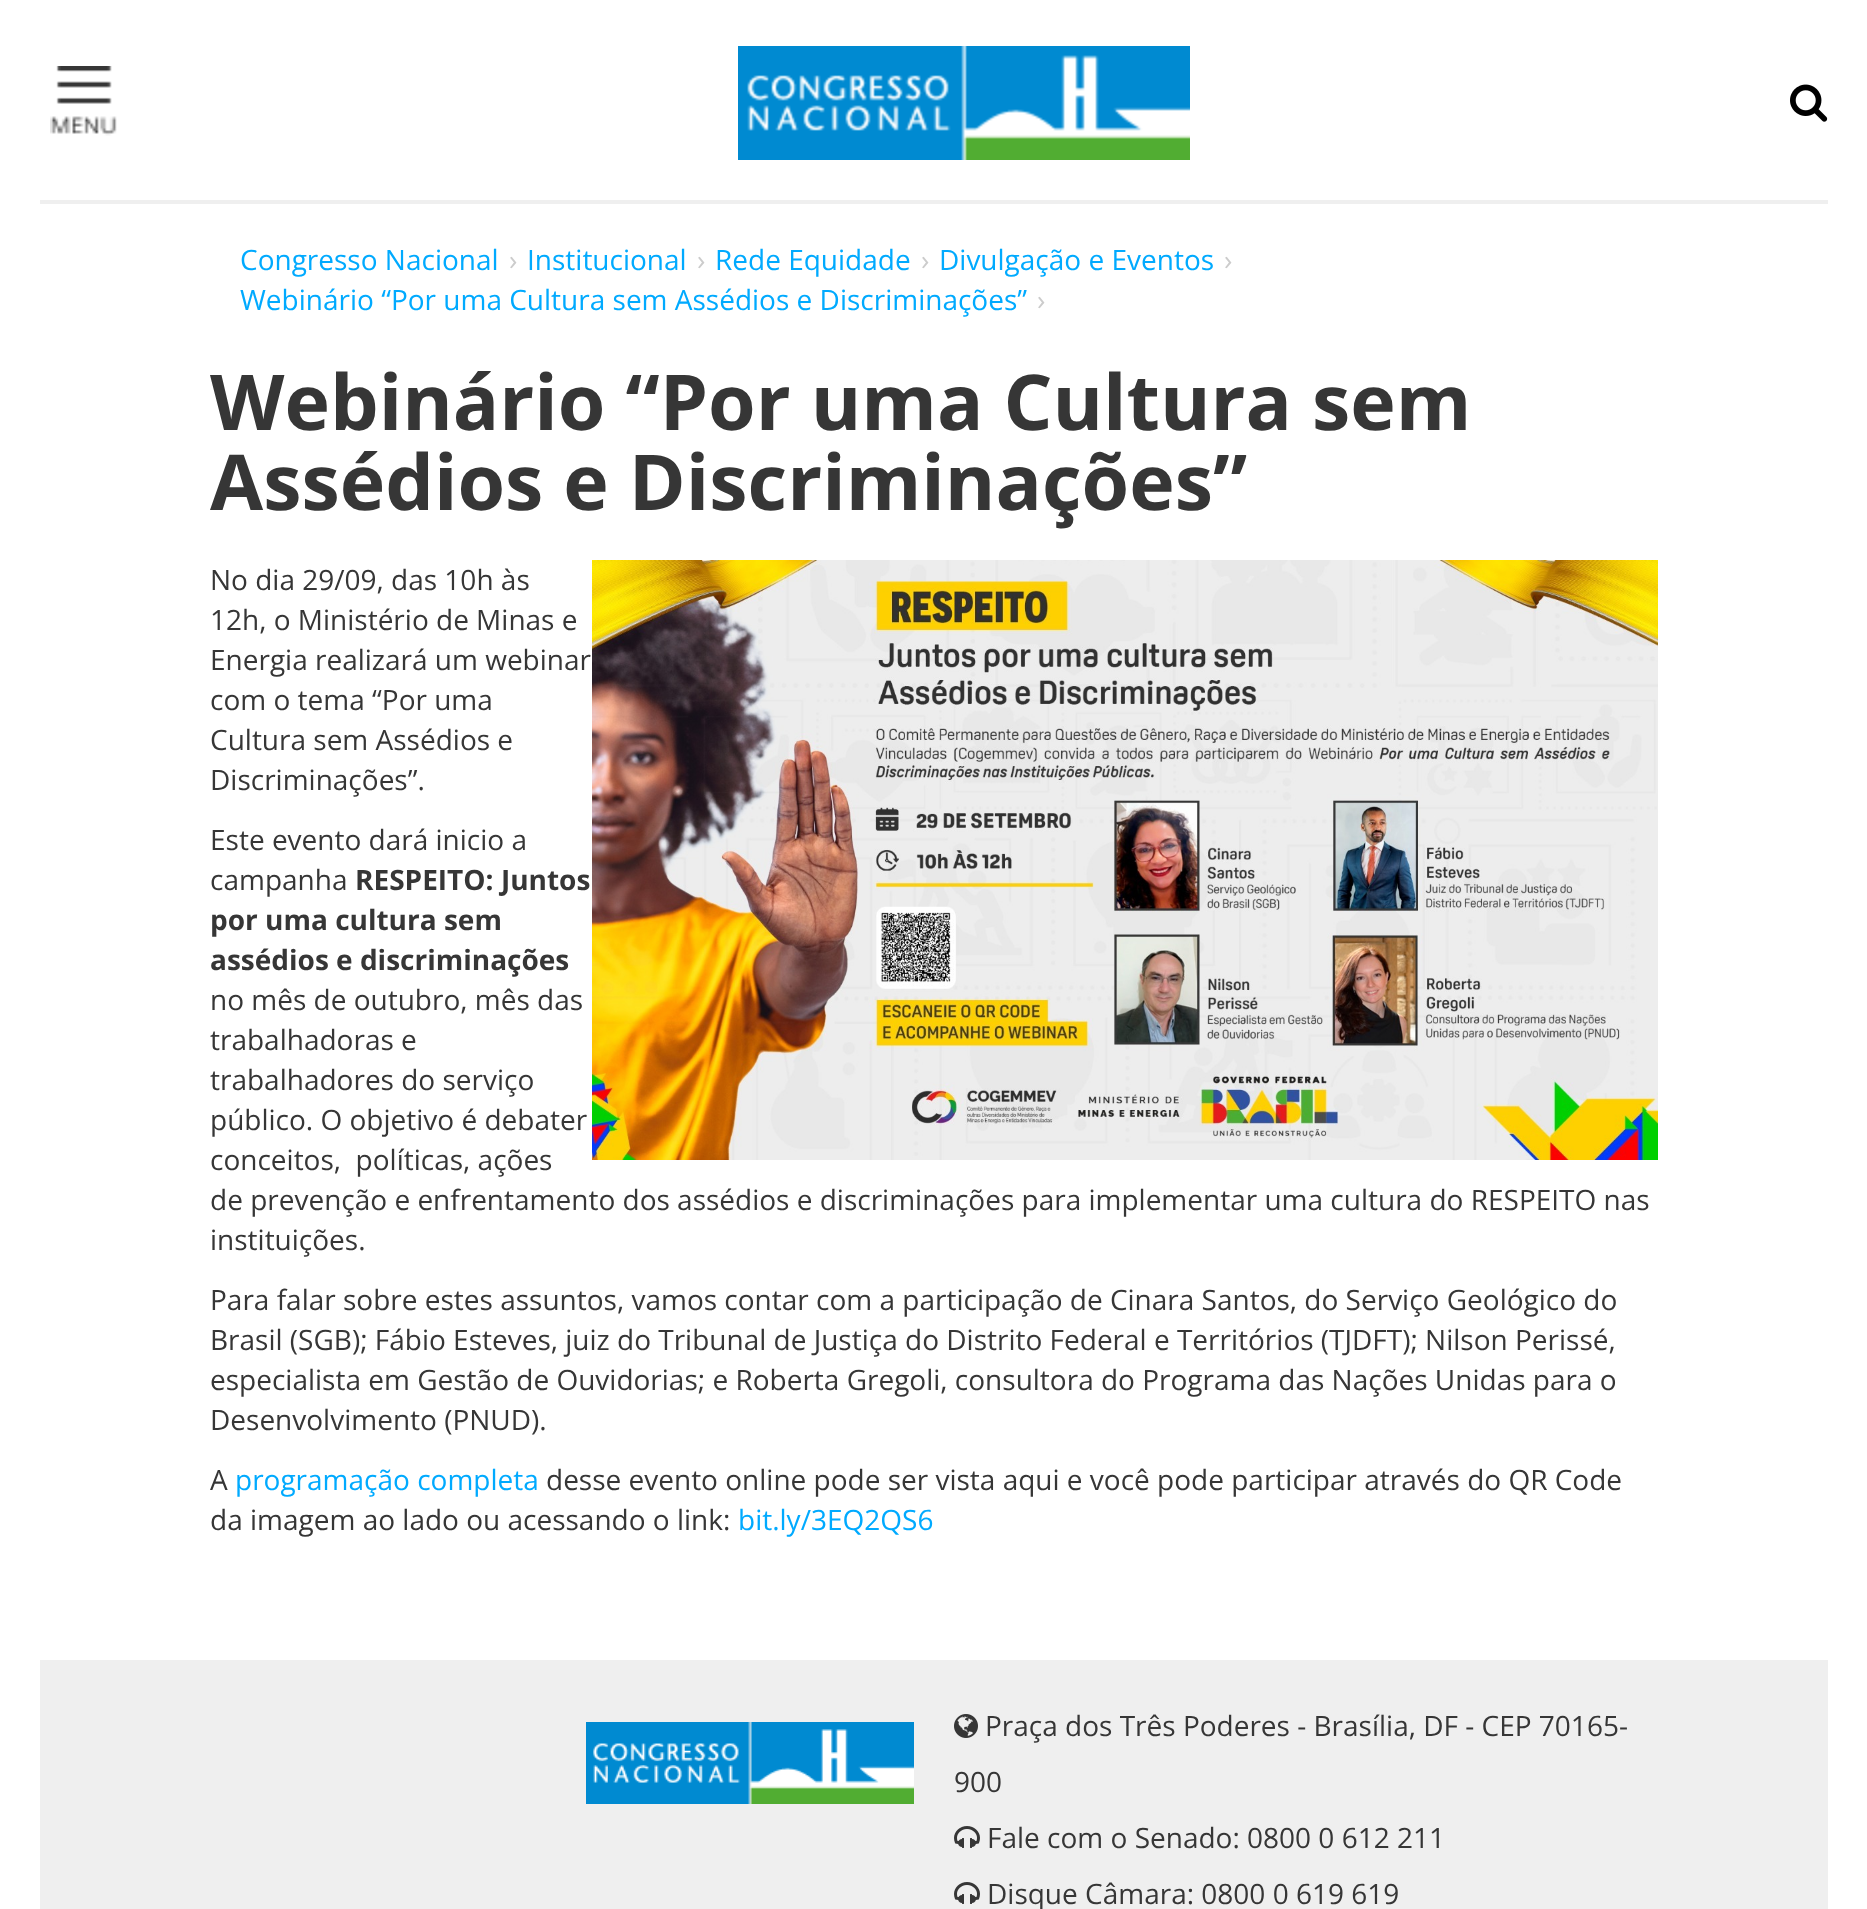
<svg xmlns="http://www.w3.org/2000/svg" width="1867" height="1909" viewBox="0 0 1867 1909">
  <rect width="100%" height="100%" fill="#ffffff"/>
  <rect x="40" y="200" width="1788" height="4" fill="#efefef"/>
  <image x="50" y="66" width="67" height="70" href="img1.png"/>
  <image x="738" y="46" width="452" height="114" href="img2.png"/>
  <image x="1790" y="84" width="38" height="38" href="img3.png"/>
  <text x="240" y="270" font-family="Open Sans" font-size="28" fill="#00aaff">Congresso Nacional</text>
  <text x="509" y="270" font-family="Open Sans" font-size="28" fill="#cccccc">›</text>
  <text x="527" y="270" font-family="Open Sans" font-size="28" fill="#00aaff">Institucional</text>
  <text x="697" y="270" font-family="Open Sans" font-size="28" fill="#cccccc">›</text>
  <text x="715" y="270" font-family="Open Sans" font-size="28" fill="#00aaff">Rede Equidade</text>
  <text x="921" y="270" font-family="Open Sans" font-size="28" fill="#cccccc">›</text>
  <text x="939" y="270" font-family="Open Sans" font-size="28" fill="#00aaff">Divulgação e Eventos</text>
  <text x="1224" y="270" font-family="Open Sans" font-size="28" fill="#cccccc">›</text>
  <text x="240" y="310" font-family="Open Sans" font-size="28" fill="#00aaff">Webinário “Por uma Cultura sem Assédios e Discriminações”</text>
  <text x="1037" y="310" font-family="Open Sans" font-size="28" fill="#cccccc">›</text>
  <text x="210" y="430" font-family="Open Sans" font-size="77" font-weight="bold" fill="#363636">Webinário “Por uma Cultura sem</text>
  <text x="210" y="510" font-family="Open Sans" font-size="77" font-weight="bold" fill="#363636">Assédios e Discriminações”</text>
  <text x="210" y="590" font-family="Open Sans" font-size="28" fill="#363636">No dia 29/09, das 10h às</text>
  <image x="592" y="560" width="1066" height="600" href="img4.png"/>
  <text x="210" y="630" font-family="Open Sans" font-size="28" fill="#363636">12h, o Ministério de Minas e</text>
  <text x="210" y="670" font-family="Open Sans" font-size="28" fill="#363636">Energia realizará um webinar</text>
  <text x="210" y="710" font-family="Open Sans" font-size="28" fill="#363636">com o tema “Por uma</text>
  <text x="210" y="750" font-family="Open Sans" font-size="28" fill="#363636">Cultura sem Assédios e</text>
  <text x="210" y="790" font-family="Open Sans" font-size="28" fill="#363636">Discriminações”.</text>
  <text x="210" y="850" font-family="Open Sans" font-size="28" fill="#363636">Este evento dará inicio a</text>
  <text x="210" y="890" font-family="Open Sans" font-size="28" fill="#363636">campanha</text>
  <text x="355" y="890" font-family="Open Sans" font-size="28" font-weight="bold" fill="#363636">RESPEITO: Juntos</text>
  <text x="210" y="930" font-family="Open Sans" font-size="28" font-weight="bold" fill="#363636">por uma cultura sem</text>
  <text x="210" y="970" font-family="Open Sans" font-size="28" font-weight="bold" fill="#363636">assédios e discriminações</text>
  <text x="210" y="1010" font-family="Open Sans" font-size="28" fill="#363636">no mês de outubro, mês das</text>
  <text x="210" y="1050" font-family="Open Sans" font-size="28" fill="#363636">trabalhadoras e</text>
  <text x="210" y="1090" font-family="Open Sans" font-size="28" fill="#363636">trabalhadores do serviço</text>
  <text x="210" y="1130" font-family="Open Sans" font-size="28" fill="#363636">público. O objetivo é debater</text>
  <text x="210" y="1170" font-family="Open Sans" font-size="28" fill="#363636" xml:space="preserve">conceitos,  políticas, ações</text>
  <text x="210" y="1210" font-family="Open Sans" font-size="28" fill="#363636">de prevenção e enfrentamento dos assédios e discriminações para implementar uma cultura do RESPEITO nas</text>
  <text x="210" y="1250" font-family="Open Sans" font-size="28" fill="#363636">instituições.</text>
  <text x="210" y="1310" font-family="Open Sans" font-size="28" fill="#363636">Para falar sobre estes assuntos, vamos contar com a participação de Cinara Santos, do Serviço Geológico do</text>
  <text x="210" y="1350" font-family="Open Sans" font-size="28" fill="#363636">Brasil (SGB); Fábio Esteves, juiz do Tribunal de Justiça do Distrito Federal e Territórios (TJDFT); Nilson Perissé,</text>
  <text x="210" y="1390" font-family="Open Sans" font-size="28" fill="#363636">especialista em Gestão de Ouvidorias; e Roberta Gregoli, consultora do Programa das Nações Unidas para o</text>
  <text x="210" y="1430" font-family="Open Sans" font-size="28" fill="#363636">Desenvolvimento (PNUD).</text>
  <text x="210" y="1490" font-family="Open Sans" font-size="28" fill="#363636">A</text>
  <text x="235" y="1490" font-family="Open Sans" font-size="28" fill="#00aaff">programação completa</text>
  <text x="546" y="1490" font-family="Open Sans" font-size="28" fill="#363636">desse evento online pode ser vista aqui e você pode participar através do QR Code</text>
  <text x="210" y="1530" font-family="Open Sans" font-size="28" fill="#363636">da imagem ao lado ou acessando o link:</text>
  <text x="738" y="1530" font-family="Open Sans" font-size="28" fill="#00aaff">bit.ly/3EQ2QS6</text>
  <rect x="40" y="1660" width="1788" height="249" fill="#efefef"/>
  <image x="586" y="1722" width="328" height="82" href="img5.png"/>
  <image x="954" y="1714" width="24" height="24" href="img6.png"/>
  <text x="985" y="1736" font-family="Open Sans" font-size="28" fill="#363636">Praça dos Três Poderes - Brasília, DF - CEP 70165-</text>
  <text x="954" y="1792" font-family="Open Sans" font-size="28" fill="#363636">900</text>
  <image x="954" y="1826" width="26" height="22" href="img7.png"/>
  <text x="987" y="1848" font-family="Open Sans" font-size="28" fill="#363636">Fale com o Senado: 0800 0 612 211</text>
  <image x="954" y="1882" width="26" height="22" href="img7.png"/>
  <text x="987" y="1904" font-family="Open Sans" font-size="28" fill="#363636">Disque Câmara: 0800 0 619 619</text>
</svg>
